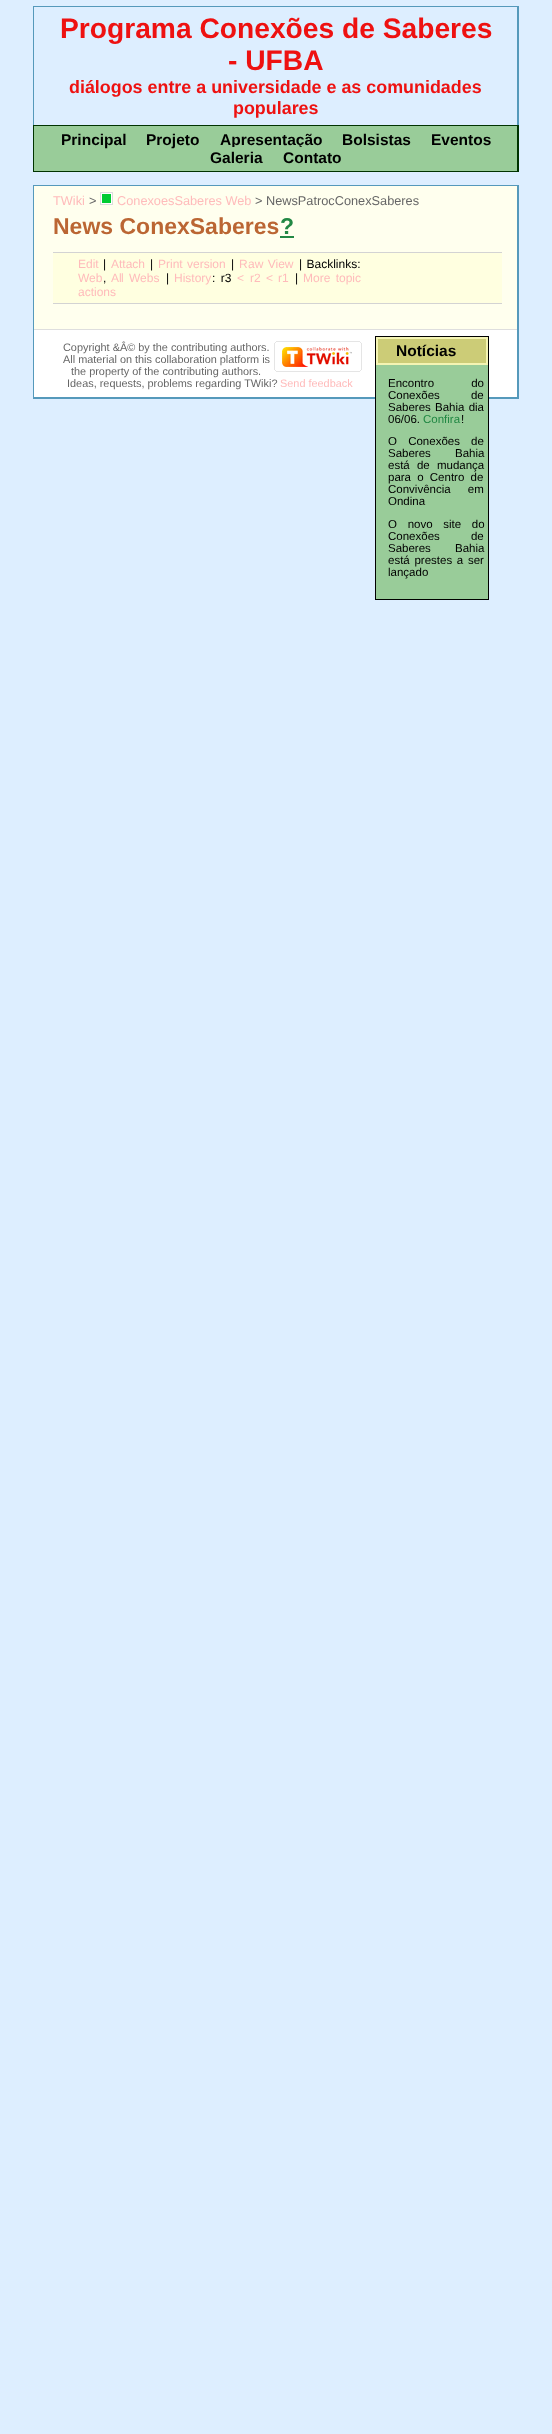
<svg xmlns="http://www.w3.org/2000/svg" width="552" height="2434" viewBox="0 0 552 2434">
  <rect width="100%" height="100%" fill="#ddeeff"/>
  <rect x="33" y="6" width="486" height="1" fill="#5599bb"/>
  <rect x="517" y="6" width="2" height="119" fill="#5599bb"/>
  <rect x="33" y="6" width="1" height="119" fill="#5599bb"/>
  <text x="60" y="38" font-family="Liberation Sans" font-size="28.2" font-weight="bold" fill="#ee1111">Programa Conexões de Saberes</text>
  <text x="228" y="70" font-family="Liberation Sans" font-size="28.2" font-weight="bold" fill="#ee1111">- UFBA</text>
  <text x="69" y="93" font-family="Liberation Sans" font-size="17.9" font-weight="bold" fill="#ee1111">diálogos entre a universidade e as comunidades</text>
  <text x="233" y="114" font-family="Liberation Sans" font-size="17.9" font-weight="bold" fill="#ee1111">populares</text>
  <rect x="34" y="126" width="483" height="45" fill="#99cc99"/>
  <rect x="33" y="125" width="486" height="1" fill="#003300"/>
  <rect x="517" y="125" width="2" height="47" fill="#003300"/>
  <rect x="33" y="171" width="486" height="1" fill="#003300"/>
  <rect x="33" y="125" width="1" height="47" fill="#003300"/>
  <text x="61" y="145" font-family="Liberation Sans" font-size="15.5" font-weight="bold" fill="#000000">Principal</text>
  <text x="146" y="145" font-family="Liberation Sans" font-size="15.5" font-weight="bold" fill="#000000">Projeto</text>
  <text x="220" y="145" font-family="Liberation Sans" font-size="15.5" font-weight="bold" fill="#000000">Apresentação</text>
  <text x="342" y="145" font-family="Liberation Sans" font-size="15.5" font-weight="bold" fill="#000000">Bolsistas</text>
  <text x="431" y="145" font-family="Liberation Sans" font-size="15.5" font-weight="bold" fill="#000000">Eventos</text>
  <rect x="203" y="148" width="66" height="19" fill="none" stroke="#99cc99" stroke-width="2"/>
  <text x="210" y="163" font-family="Liberation Sans" font-size="15.5" font-weight="bold" fill="#000000">Galeria</text>
  <rect x="276" y="148" width="72" height="19" fill="none" stroke="#99cc99" stroke-width="2"/>
  <text x="283" y="163" font-family="Liberation Sans" font-size="15.5" font-weight="bold" fill="#000000">Contato</text>
  <rect x="34" y="186" width="483" height="143" fill="#ffffee"/>
  <rect x="33" y="185" width="486" height="1" fill="#5599bb"/>
  <rect x="517" y="185" width="2" height="214" fill="#5599bb"/>
  <rect x="33" y="397" width="486" height="2" fill="#5599bb"/>
  <rect x="33" y="185" width="1" height="214" fill="#5599bb"/>
  <rect x="34" y="329" width="483" height="1" fill="#dedede"/>
  <text x="53" y="205" font-family="Liberation Sans" font-size="12.75" fill="#ffbbbb">TWiki</text>
  <text x="89" y="205" font-family="Liberation Sans" font-size="12.75" fill="#666666">&gt;</text>
  <rect x="102" y="194" width="9" height="9" fill="#00cc33"/>
  <image x="100" y="192" width="13" height="13" href="img1.png"/>
  <text x="117" y="205" font-family="Liberation Sans" font-size="12.75" fill="#ffbbbb">ConexoesSaberes Web</text>
  <text x="255" y="205" font-family="Liberation Sans" font-size="12.75" fill="#666666">&gt; NewsPatrocConexSaberes</text>
  <text x="53" y="234" font-family="Liberation Sans" font-size="23" font-weight="bold" fill="#bb6633">News ConexSaberes</text>
  <text x="280" y="234" font-family="Liberation Sans" font-size="23" font-weight="bold" fill="#228844">?</text>
  <rect x="280" y="236" width="14" height="2" fill="#228844"/>
  <rect x="53" y="253" width="449" height="50" fill="#ffffe0"/>
  <rect x="53" y="252" width="449" height="1" fill="#d3d3d3"/>
  <rect x="53" y="303" width="449" height="1" fill="#d3d3d3"/>
  <text x="78" y="268" font-family="Liberation Sans" font-size="12" fill="#ffbbbb">Edit</text>
  <text x="103" y="268" font-family="Liberation Sans" font-size="12" fill="#000000">|</text>
  <text x="111" y="268" font-family="Liberation Sans" font-size="12" fill="#ffbbbb">Attach</text>
  <text x="150" y="268" font-family="Liberation Sans" font-size="12" fill="#000000">|</text>
  <text x="158" y="268" font-family="Liberation Sans" font-size="12" fill="#ffbbbb">P</text>
  <text x="166" y="268" word-spacing="1" font-family="Liberation Sans" font-size="12" fill="#ffbbbb">rint version</text>
  <text x="231" y="268" font-family="Liberation Sans" font-size="12" fill="#000000">|</text>
  <text x="239" y="268" font-family="Liberation Sans" font-size="12" fill="#ffbbbb">R</text>
  <text x="248" y="268" word-spacing="1" font-family="Liberation Sans" font-size="12" fill="#ffbbbb">aw View</text>
  <text x="299" y="268" word-spacing="1" font-family="Liberation Sans" font-size="12" fill="#000000">| Backlinks:</text>
  <text x="78" y="282" font-family="Liberation Sans" font-size="12" fill="#ffbbbb">Web</text>
  <text x="103" y="282" font-family="Liberation Sans" font-size="12" fill="#000000">,</text>
  <text x="111" y="282" font-family="Liberation Sans" font-size="12" fill="#ffbbbb">Al</text>
  <text x="121" y="282" word-spacing="2" font-family="Liberation Sans" font-size="12" fill="#ffbbbb">l Webs</text>
  <text x="166" y="282" font-family="Liberation Sans" font-size="12" fill="#000000">|</text>
  <text x="174" y="282" font-family="Liberation Sans" font-size="12" fill="#ffbbbb">History</text>
  <text x="212" y="282" word-spacing="2" font-family="Liberation Sans" font-size="12" fill="#000000">: r3</text>
  <text x="237" y="282" font-family="Liberation Sans" font-size="12" fill="#ffbbbb">&lt;</text>
  <text x="250" y="282" font-family="Liberation Sans" font-size="12" fill="#ffbbbb">r2</text>
  <text x="266" y="282" font-family="Liberation Sans" font-size="12" fill="#ffbbbb">&lt;</text>
  <text x="278" y="282" font-family="Liberation Sans" font-size="12" fill="#ffbbbb">r1</text>
  <text x="295" y="282" font-family="Liberation Sans" font-size="12" fill="#000000">|</text>
  <text x="303" y="282" font-family="Liberation Sans" font-size="12" fill="#ffbbbb">M</text>
  <text x="313" y="282" word-spacing="2" font-family="Liberation Sans" font-size="12" fill="#ffbbbb">ore topic</text>
  <text x="78" y="296" font-family="Liberation Sans" font-size="12" fill="#ffbbbb">actions</text>
  <rect x="34" y="330" width="483" height="67" fill="#ffffff"/>
  <rect x="376" y="365" width="112" height="234" fill="#99cc99"/>
  <rect x="375.5" y="336.5" width="113" height="263" fill="none" stroke="#000000"/>
  <rect x="377" y="338" width="110" height="26" fill="#cccc77" stroke="#f4f4b3" stroke-width="2"/>
  <text x="396" y="356" font-family="Liberation Sans" font-size="15.5" font-weight="bold" fill="#000000">Notícias</text>
  <text x="388" y="387" word-spacing="34" font-family="Liberation Sans" font-size="11.5" fill="#000000">Encontro do</text>
  <text x="388" y="399" word-spacing="28" font-family="Liberation Sans" font-size="11.5" fill="#000000">Conexões de</text>
  <text x="388" y="411" word-spacing="1" font-family="Liberation Sans" font-size="11.5" fill="#000000">Saberes Bahia dia</text>
  <text x="388" y="423" font-family="Liberation Sans" font-size="11.5" fill="#000000">06/06.</text>
  <text x="423" y="423" font-family="Liberation Sans" font-size="11.5" fill="#228844">Confira</text>
  <text x="461" y="423" font-family="Liberation Sans" font-size="11.5" fill="#000000">!</text>
  <text x="388" y="445" word-spacing="8" font-family="Liberation Sans" font-size="11.5" fill="#000000">O Conexões de</text>
  <text x="388" y="457" word-spacing="21" font-family="Liberation Sans" font-size="11.5" fill="#000000">Saberes Bahia</text>
  <text x="388" y="469" word-spacing="4" font-family="Liberation Sans" font-size="11.5" fill="#000000">está de mudança</text>
  <text x="388" y="481" word-spacing="3" font-family="Liberation Sans" font-size="11.5" fill="#000000">para o Centro de</text>
  <text x="388" y="493" word-spacing="14" font-family="Liberation Sans" font-size="11.5" fill="#000000">Convivência em</text>
  <text x="388" y="505" font-family="Liberation Sans" font-size="11.5" fill="#000000">Ondina</text>
  <text x="388" y="528" word-spacing="7.5" font-family="Liberation Sans" font-size="11.5" fill="#000000">O novo site do</text>
  <text x="388" y="540" word-spacing="28" font-family="Liberation Sans" font-size="11.5" fill="#000000">Conexões de</text>
  <text x="388" y="552" word-spacing="21" font-family="Liberation Sans" font-size="11.5" fill="#000000">Saberes Bahia</text>
  <text x="388" y="564" word-spacing="1.5" font-family="Liberation Sans" font-size="11.5" fill="#000000">está prestes a ser</text>
  <text x="388" y="576" font-family="Liberation Sans" font-size="11.5" fill="#000000">lançado</text>
  <text x="63" y="351" font-family="Liberation Sans" font-size="10.9" fill="#666666">Copyright &amp;Â© by the contributing authors.</text>
  <image x="274" y="341" width="88" height="31" href="img2.png"/>
  <text x="63" y="363" font-family="Liberation Sans" font-size="10.9" fill="#666666">All material on this collaboration platform is</text>
  <text x="71" y="375" font-family="Liberation Sans" font-size="10.9" fill="#666666">the property of the contributing authors.</text>
  <text x="67" y="387" font-family="Liberation Sans" font-size="10.9" fill="#666666">Ideas, requests, problems regarding TWiki?</text>
  <text x="280" y="387" font-family="Liberation Sans" font-size="10.9" fill="#ffbbbb">Send feedback</text>
</svg>
